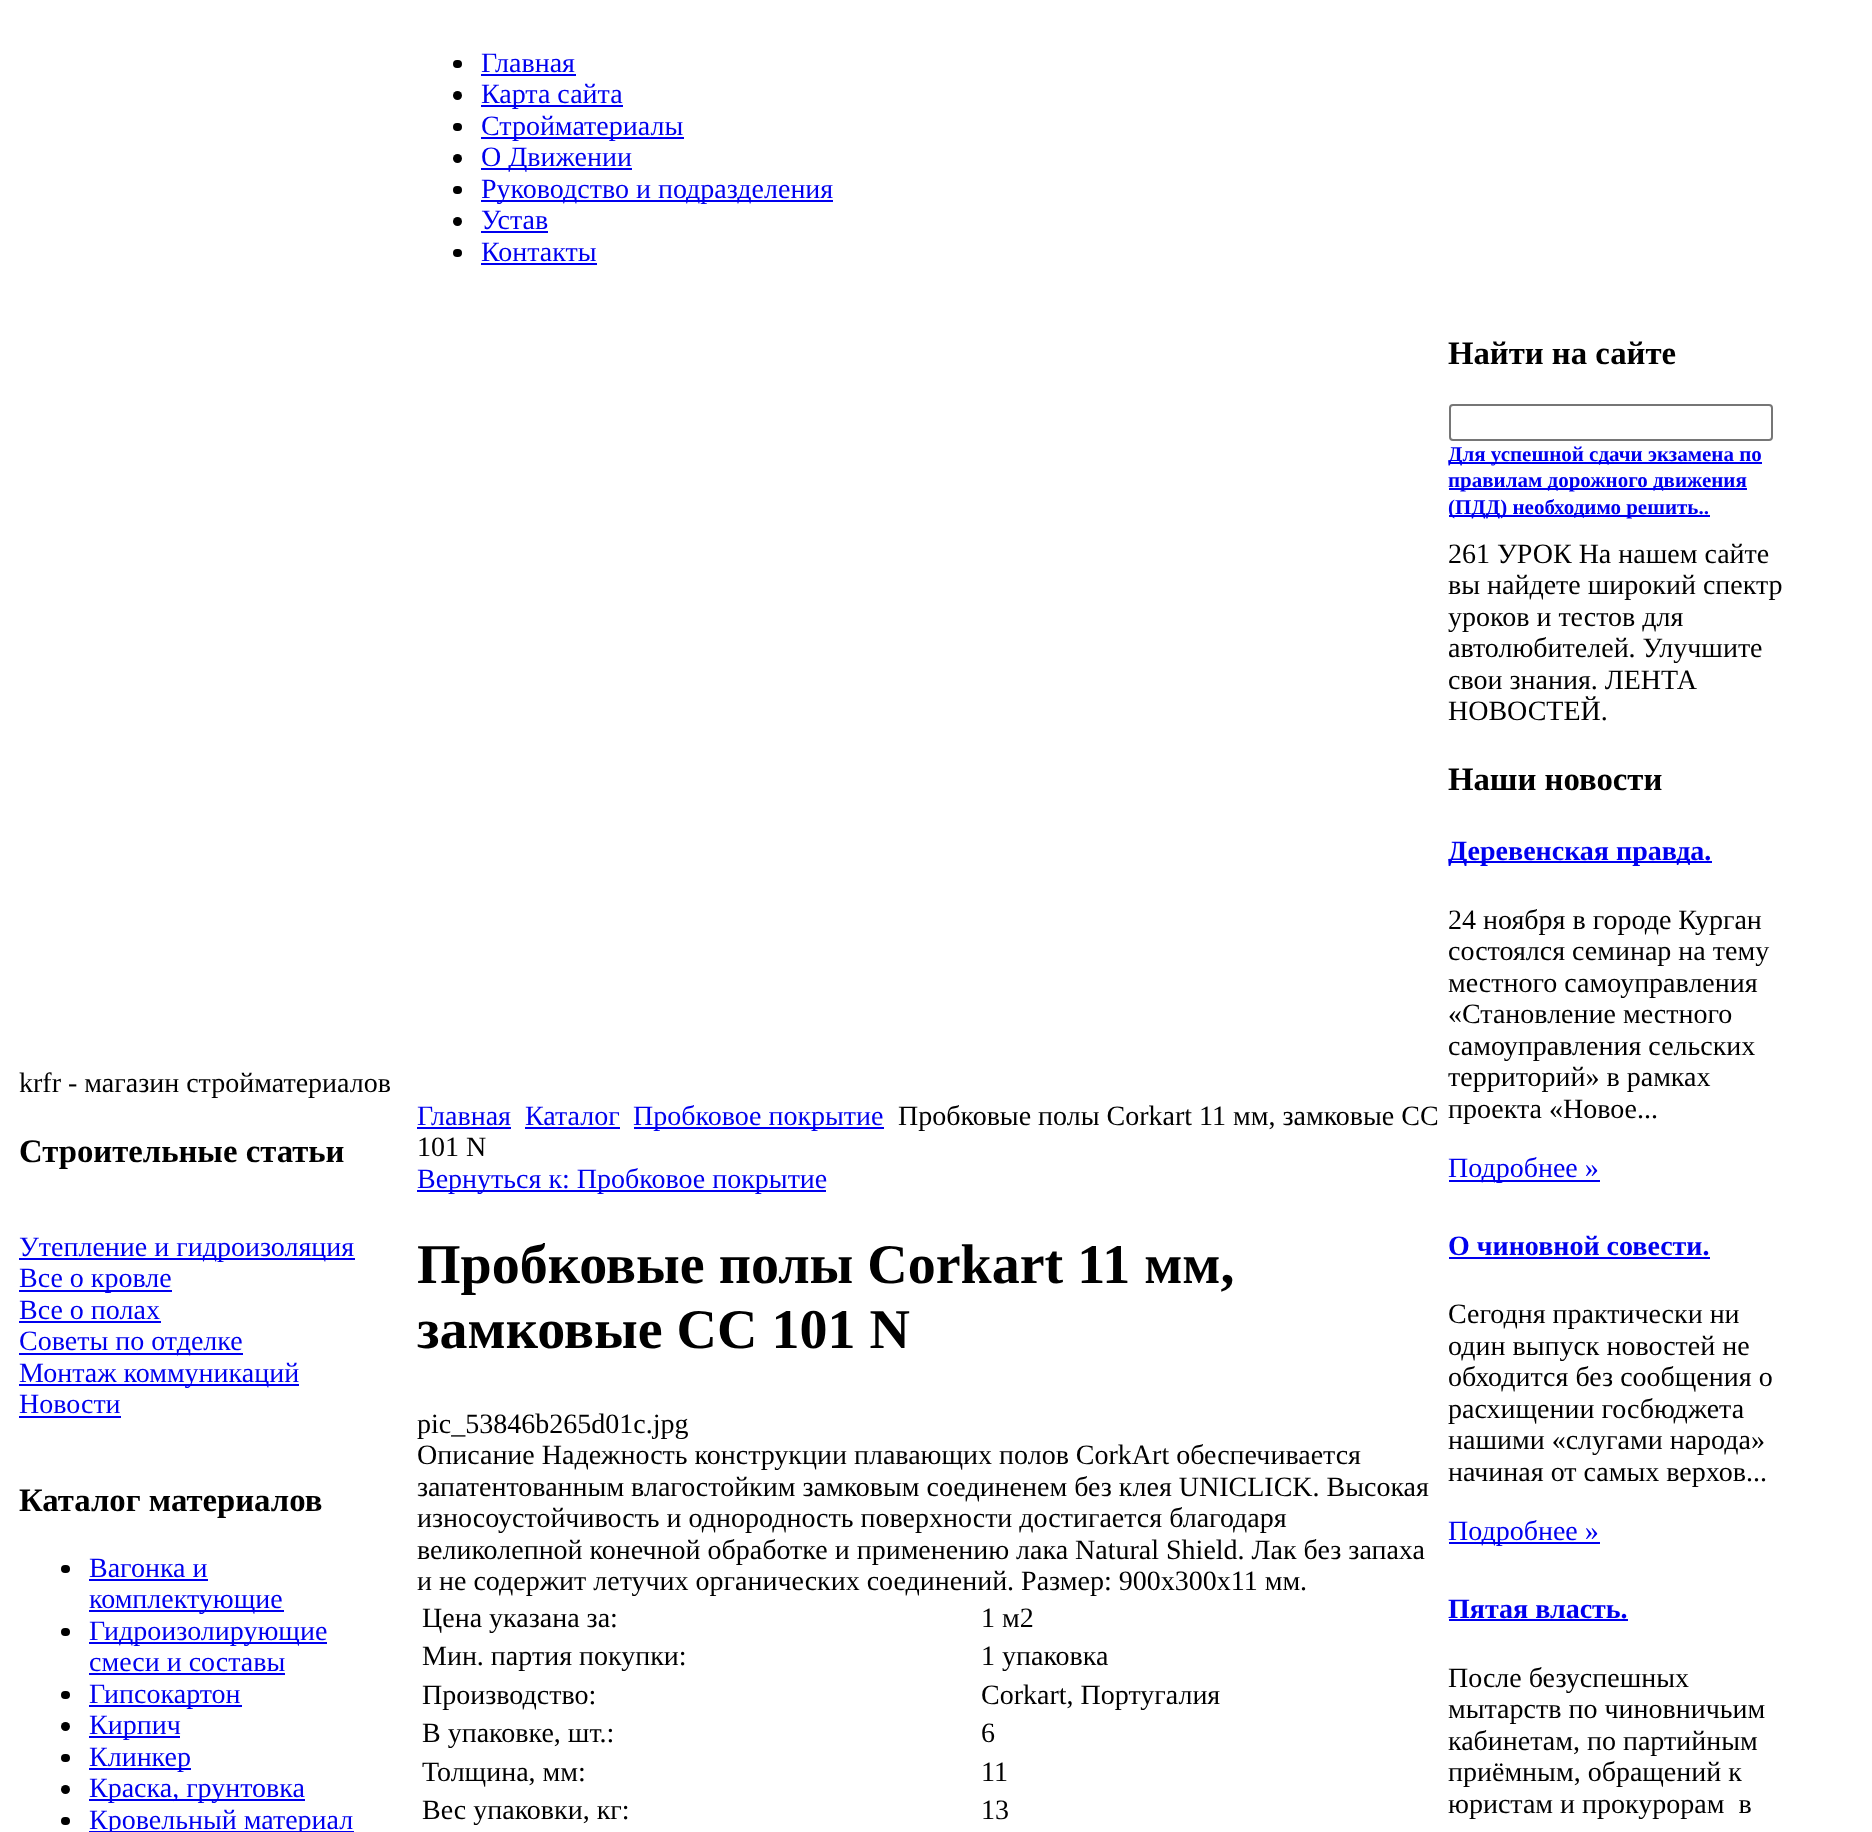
<svg xmlns="http://www.w3.org/2000/svg" width="1872" height="1832" viewBox="0 0 1872 1832">
  <rect width="100%" height="100%" fill="#ffffff"/>
  <text x="19" y="1092" font-family="Liberation Serif" font-size="28" fill="#000000">krfr - магазин стройматериалов</text>
  <text x="19" y="1162" font-family="Liberation Serif" font-size="32.75" font-weight="bold" fill="#000000">Строительные статьи</text>
  <rect x="19" y="1258" width="336" height="2" fill="#0000ee"/>
  <text x="19" y="1256" font-family="Liberation Serif" font-size="28" fill="#0000ee">Утепление и гидроизоляция</text>
  <rect x="19" y="1290" width="153" height="2" fill="#0000ee"/>
  <text x="19" y="1287" font-family="Liberation Serif" font-size="28" fill="#0000ee">Все о кровле</text>
  <text x="19" y="1319" font-family="Liberation Serif" font-size="28" fill="#0000ee">Все о полах</text>
  <rect x="19" y="1321" width="142" height="2" fill="#0000ee"/>
  <rect x="19" y="1353" width="224" height="2" fill="#0000ee"/>
  <text x="19" y="1350" font-family="Liberation Serif" font-size="28" fill="#0000ee">Советы по отделке</text>
  <rect x="19" y="1384" width="280" height="2" fill="#0000ee"/>
  <text x="19" y="1382" font-family="Liberation Serif" font-size="28" fill="#0000ee">Монтаж коммуникаций</text>
  <text x="19" y="1413" font-family="Liberation Serif" font-size="28" fill="#0000ee">Новости</text>
  <rect x="19" y="1416" width="102" height="2" fill="#0000ee"/>
  <text x="19" y="1511" font-family="Liberation Serif" font-size="32.75" font-weight="bold" fill="#000000">Каталог материалов</text>
  <rect x="61" y="1565" width="9" height="8" rx="4" fill="#000000"/>
  <text x="89" y="1577" font-family="Liberation Serif" font-size="28" fill="#0000ee">Вагонка и</text>
  <rect x="89" y="1579" width="119" height="2" fill="#0000ee"/>
  <rect x="89" y="1610" width="195" height="2" fill="#0000ee"/>
  <text x="89" y="1608" font-family="Liberation Serif" font-size="28" fill="#0000ee">комплектующие</text>
  <rect x="61" y="1628" width="9" height="8" rx="4" fill="#000000"/>
  <rect x="89" y="1642" width="238" height="2" fill="#0000ee"/>
  <text x="89" y="1640" font-family="Liberation Serif" font-size="28" fill="#0000ee">Гидроизолирующие</text>
  <text x="89" y="1671" font-family="Liberation Serif" font-size="28" fill="#0000ee">смеси и составы</text>
  <rect x="89" y="1673" width="196" height="2" fill="#0000ee"/>
  <rect x="61" y="1691" width="9" height="8" rx="4" fill="#000000"/>
  <rect x="89" y="1705" width="153" height="2" fill="#0000ee"/>
  <text x="89" y="1703" font-family="Liberation Serif" font-size="28" fill="#0000ee">Гипсокартон</text>
  <circle cx="65.5" cy="1726.5" r="4.5" fill="#000000"/>
  <rect x="89" y="1736" width="91" height="2" fill="#0000ee"/>
  <text x="89" y="1734" font-family="Liberation Serif" font-size="28" fill="#0000ee">Кирпич</text>
  <rect x="61" y="1754" width="9" height="8" rx="4" fill="#000000"/>
  <rect x="89" y="1768" width="102" height="2" fill="#0000ee"/>
  <text x="89" y="1766" font-family="Liberation Serif" font-size="28" fill="#0000ee">Клинкер</text>
  <circle cx="65.5" cy="1789.5" r="4.5" fill="#000000"/>
  <rect x="89" y="1799" width="216" height="2" fill="#0000ee"/>
  <text x="89" y="1797" font-family="Liberation Serif" font-size="28" fill="#0000ee">Краска, грунтовка</text>
  <rect x="61" y="1817" width="9" height="8" rx="4" fill="#000000"/>
  <rect x="89" y="1831" width="265" height="1" fill="#0000ee"/>
  <text x="89" y="1829" font-family="Liberation Serif" font-size="28" fill="#0000ee">Кровельный материал</text>
  <rect x="453" y="60" width="9" height="8" rx="4" fill="#000000"/>
  <text x="481" y="72" font-family="Liberation Serif" font-size="28" fill="#0000ee">Главная</text>
  <rect x="481" y="74" width="95" height="2" fill="#0000ee"/>
  <circle cx="457.5" cy="95.5" r="4.5" fill="#000000"/>
  <rect x="481" y="105" width="142" height="2" fill="#0000ee"/>
  <text x="481" y="103" font-family="Liberation Serif" font-size="28" fill="#0000ee">Карта сайта</text>
  <rect x="453" y="123" width="9" height="8" rx="4" fill="#000000"/>
  <rect x="481" y="137" width="203" height="2" fill="#0000ee"/>
  <text x="481" y="135" font-family="Liberation Serif" font-size="28" fill="#0000ee">Стройматериалы</text>
  <circle cx="457.5" cy="158.5" r="4.5" fill="#000000"/>
  <rect x="481" y="168" width="151" height="2" fill="#0000ee"/>
  <text x="481" y="166" font-family="Liberation Serif" font-size="28" fill="#0000ee">О Движении</text>
  <rect x="453" y="186" width="9" height="8" rx="4" fill="#000000"/>
  <rect x="481" y="200" width="352" height="2" fill="#0000ee"/>
  <text x="481" y="198" font-family="Liberation Serif" font-size="28" fill="#0000ee">Руководство и подразделения</text>
  <circle cx="457.5" cy="221.5" r="4.5" fill="#000000"/>
  <text x="481" y="229" font-family="Liberation Serif" font-size="28" fill="#0000ee">Устав</text>
  <rect x="481" y="231" width="67" height="2" fill="#0000ee"/>
  <rect x="453" y="249" width="9" height="8" rx="4" fill="#000000"/>
  <text x="481" y="261" font-family="Liberation Serif" font-size="28" fill="#0000ee">Контакты</text>
  <rect x="481" y="263" width="116" height="2" fill="#0000ee"/>
  <text x="417" y="1125" font-family="Liberation Serif" font-size="28" fill="#0000ee">Главная</text>
  <rect x="417" y="1127" width="94" height="2" fill="#0000ee"/>
  <text x="525" y="1125" font-family="Liberation Serif" font-size="28" fill="#0000ee">Каталог</text>
  <rect x="525" y="1127" width="95" height="2" fill="#0000ee"/>
  <rect x="634" y="1127" width="250" height="2" fill="#0000ee"/>
  <text x="633" y="1125" font-family="Liberation Serif" font-size="28" fill="#0000ee">Пробковое покрытие</text>
  <text x="898" y="1125" font-family="Liberation Serif" font-size="28" fill="#000000">Пробковые полы Corkart 11 мм, замковые CC</text>
  <text x="417" y="1156" font-family="Liberation Serif" font-size="28" fill="#000000">101 N</text>
  <rect x="417" y="1190" width="409" height="2" fill="#0000ee"/>
  <text x="417" y="1188" font-family="Liberation Serif" font-size="28" fill="#0000ee">Вернуться к: Пробковое покрытие</text>
  <text x="417" y="1283" font-family="Liberation Serif" font-size="56" font-weight="bold" fill="#000000">Пробковые полы Corkart 11 мм,</text>
  <text x="417" y="1348" font-family="Liberation Serif" font-size="56" font-weight="bold" fill="#000000">замковые CC 101 N</text>
  <text x="417" y="1433" font-family="Liberation Serif" font-size="28" fill="#000000">pic_53846b265d01c.jpg</text>
  <text x="417" y="1464" font-family="Liberation Serif" font-size="28" fill="#000000">Описание Надежность конструкции плавающих полов CorkArt обеспечивается</text>
  <text x="417" y="1496" font-family="Liberation Serif" font-size="28" fill="#000000">запатентованным влагостойким замковым соединенем без клея UNICLICK. Высокая</text>
  <text x="417" y="1527" font-family="Liberation Serif" font-size="28" fill="#000000">износоустойчивость и однородность поверхности достигается благодаря</text>
  <text x="417" y="1559" font-family="Liberation Serif" font-size="28" fill="#000000">великолепной конечной обработке и применению лака Natural Shield. Лак без запаха</text>
  <text x="417" y="1590" font-family="Liberation Serif" font-size="28" fill="#000000">и не содержит летучих органических соединений. Размер: 900х300х11 мм.</text>
  <text x="422" y="1627" font-family="Liberation Serif" font-size="28" fill="#000000">Цена указана за:</text>
  <text x="981" y="1627" font-family="Liberation Serif" font-size="28" fill="#000000">1 м2</text>
  <text x="422" y="1665" font-family="Liberation Serif" font-size="28" fill="#000000">Мин. партия покупки:</text>
  <text x="981" y="1665" font-family="Liberation Serif" font-size="28" fill="#000000">1 упаковка</text>
  <text x="422" y="1704" font-family="Liberation Serif" font-size="28" fill="#000000">Производство:</text>
  <text x="981" y="1704" font-family="Liberation Serif" font-size="28" fill="#000000">Corkart, Португалия</text>
  <text x="422" y="1742" font-family="Liberation Serif" font-size="28" fill="#000000">В упаковке, шт.:</text>
  <text x="981" y="1742" font-family="Liberation Serif" font-size="28" fill="#000000">6</text>
  <text x="422" y="1781" font-family="Liberation Serif" font-size="28" fill="#000000">Толщина, мм:</text>
  <text x="981" y="1781" font-family="Liberation Serif" font-size="28" fill="#000000">11</text>
  <text x="422" y="1819" font-family="Liberation Serif" font-size="28" fill="#000000">Вес упаковки, кг:</text>
  <text x="981" y="1819" font-family="Liberation Serif" font-size="28" fill="#000000">13</text>
  <text x="1448" y="364" font-family="Liberation Serif" font-size="32.75" font-weight="bold" fill="#000000">Найти на сайте</text>
  <rect x="1450" y="405" width="322" height="35" rx="3" fill="none" stroke="#767676" stroke-width="2"/>
  <rect x="1449" y="462" width="313" height="2" fill="#0000ee"/>
  <text x="1448" y="461" font-family="Liberation Serif" font-size="21" font-weight="bold" fill="#0000ee">Для успешной сдачи экзамена по</text>
  <rect x="1449" y="488" width="298" height="2" fill="#0000ee"/>
  <text x="1448" y="487" font-family="Liberation Serif" font-size="21" font-weight="bold" fill="#0000ee">правилам дорожного движения</text>
  <rect x="1449" y="515" width="261" height="2" fill="#0000ee"/>
  <text x="1448" y="514" font-family="Liberation Serif" font-size="21" font-weight="bold" fill="#0000ee">(ПДД) необходимо решить..</text>
  <text x="1448" y="563" font-family="Liberation Serif" font-size="28" fill="#000000">261 УРОК На нашем сайте</text>
  <text x="1448" y="594" font-family="Liberation Serif" font-size="28" fill="#000000">вы найдете широкий спектр</text>
  <text x="1448" y="626" font-family="Liberation Serif" font-size="28" fill="#000000">уроков и тестов для</text>
  <text x="1448" y="657" font-family="Liberation Serif" font-size="28" fill="#000000">автолюбителей. Улучшите</text>
  <text x="1448" y="689" font-family="Liberation Serif" font-size="28" fill="#000000">свои знания. ЛЕНТА</text>
  <text x="1448" y="720" font-family="Liberation Serif" font-size="28" fill="#000000">НОВОСТЕЙ.</text>
  <text x="1448" y="790" font-family="Liberation Serif" font-size="32.75" font-weight="bold" fill="#000000">Наши новости</text>
  <rect x="1449" y="861" width="263" height="2" fill="#0000ee"/>
  <text x="1448" y="860" font-family="Liberation Serif" font-size="28" font-weight="bold" fill="#0000ee">Деревенская правда.</text>
  <text x="1448" y="929" font-family="Liberation Serif" font-size="28" fill="#000000">24 ноября в городе Курган</text>
  <text x="1448" y="960" font-family="Liberation Serif" font-size="28" fill="#000000">состоялся семинар на тему</text>
  <text x="1448" y="992" font-family="Liberation Serif" font-size="28" fill="#000000">местного самоуправления</text>
  <text x="1448" y="1023" font-family="Liberation Serif" font-size="28" fill="#000000">«Становление местного</text>
  <text x="1448" y="1055" font-family="Liberation Serif" font-size="28" fill="#000000">самоуправления сельских</text>
  <text x="1448" y="1086" font-family="Liberation Serif" font-size="28" fill="#000000">территорий» в рамках</text>
  <text x="1448" y="1118" font-family="Liberation Serif" font-size="28" fill="#000000">проекта «Новое...</text>
  <rect x="1449" y="1180" width="151" height="2" fill="#0000ee"/>
  <text x="1448" y="1177" font-family="Liberation Serif" font-size="28" fill="#0000ee">Подробнее »</text>
  <text x="1448" y="1255" font-family="Liberation Serif" font-size="28" font-weight="bold" fill="#0000ee">О чиновной совести.</text>
  <rect x="1449" y="1257" width="261" height="2" fill="#0000ee"/>
  <text x="1448" y="1323" font-family="Liberation Serif" font-size="28" fill="#000000">Сегодня практически ни</text>
  <text x="1448" y="1355" font-family="Liberation Serif" font-size="28" fill="#000000">один выпуск новостей не</text>
  <text x="1448" y="1386" font-family="Liberation Serif" font-size="28" fill="#000000">обходится без сообщения о</text>
  <text x="1448" y="1418" font-family="Liberation Serif" font-size="28" fill="#000000">расхищении госбюджета</text>
  <text x="1448" y="1449" font-family="Liberation Serif" font-size="28" fill="#000000">нашими «слугами народа»</text>
  <text x="1448" y="1481" font-family="Liberation Serif" font-size="28" fill="#000000">начиная от самых верхов...</text>
  <rect x="1449" y="1542" width="151" height="2" fill="#0000ee"/>
  <text x="1448" y="1540" font-family="Liberation Serif" font-size="28" fill="#0000ee">Подробнее »</text>
  <text x="1448" y="1618" font-family="Liberation Serif" font-size="28" font-weight="bold" fill="#0000ee">Пятая власть.</text>
  <rect x="1449" y="1619" width="179" height="2" fill="#0000ee"/>
  <text x="1448" y="1687" font-family="Liberation Serif" font-size="28" fill="#000000">После безуспешных</text>
  <text x="1448" y="1718" font-family="Liberation Serif" font-size="28" fill="#000000">мытарств по чиновничьим</text>
  <text x="1448" y="1750" font-family="Liberation Serif" font-size="28" fill="#000000">кабинетам, по партийным</text>
  <text x="1448" y="1781" font-family="Liberation Serif" font-size="28" fill="#000000">приёмным, обращений к</text>
  <text x="1448" y="1813" font-family="Liberation Serif" font-size="28" fill="#000000" xml:space="preserve">юристам и прокурорам  в</text>
</svg>
